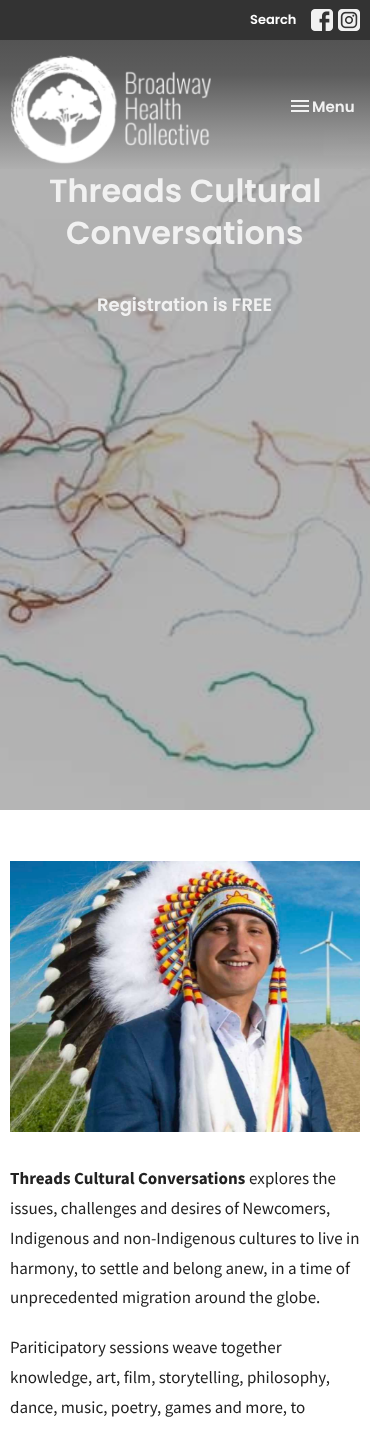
<svg xmlns="http://www.w3.org/2000/svg" width="370" height="1429" viewBox="0 0 370 1429">
  <defs>
    <linearGradient id="g1" gradientUnits="userSpaceOnUse" x1="185" y1="179" x2="185" y2="40"><stop offset="0.05" stop-color="#333333" stop-opacity="0"/><stop offset="0.75" stop-color="#333333" stop-opacity="0.68"/><stop offset="1" stop-color="#333333" stop-opacity="0.75"/></linearGradient>
  </defs>
  <rect width="100%" height="100%" fill="#ffffff"/>
  <rect x="0" y="0" width="370" height="40" fill="#333333"/>
  <text x="250" y="24" font-family="Poppins" font-size="13" font-weight="600" fill="#ffffff">Search</text>
  <image x="311" y="9" width="22" height="22" href="img1.png"/>
  <image x="338" y="9" width="22" height="22" href="img2.png"/>
  <image x="0" y="40" width="370" height="770" href="img5.png"/>
  <rect x="0" y="40" width="370" height="129" fill="url(#g1)"/>
  <image x="10" y="55" width="201" height="109" href="img3.png"/>
  <image x="291" y="100" width="18" height="12" href="img4.png"/>
  <text x="312" y="112" font-family="Poppins" font-size="15" font-weight="600" fill="#f1f1f1">Menu</text>
  <text x="49" y="202" font-family="Poppins" font-size="32" font-weight="600" fill="#f1f1f1">Threads Cultural</text>
  <text x="66" y="244" font-family="Poppins" font-size="32" font-weight="600" fill="#f1f1f1">Conversations</text>
  <text x="97" y="311" font-family="Poppins" font-size="18" font-weight="600" fill="#f1f1f1">Registration is FREE</text>
  <image x="10" y="861" width="350" height="271" href="img6.png"/>
  <text x="10" y="1184" font-family="Source Sans Pro" font-size="17" font-weight="bold" fill="#222222">Threads Cultural Conversations</text>
  <text x="249" y="1184" font-family="Source Sans Pro" font-size="17" fill="#222222">explores the</text>
  <text x="10" y="1214" font-family="Source Sans Pro" font-size="17" fill="#222222">issues, challenges and desires of Newcomers,</text>
  <text x="10" y="1244" font-family="Source Sans Pro" font-size="17" fill="#222222">Indigenous and non-Indigenous cultures to live in</text>
  <text x="10" y="1274" font-family="Source Sans Pro" font-size="17" fill="#222222">harmony, to settle and belong anew, in a time of</text>
  <text x="10" y="1303" font-family="Source Sans Pro" font-size="17" fill="#222222">unprecedented migration around the globe.</text>
  <text x="10" y="1353" font-family="Source Sans Pro" font-size="17" fill="#222222">Pariticipatory sessions weave together</text>
  <text x="10" y="1383" font-family="Source Sans Pro" font-size="17" fill="#222222">knowledge, art, film, storytelling, philosophy,</text>
  <text x="10" y="1413" font-family="Source Sans Pro" font-size="17" fill="#222222">dance, music, poetry, games and more, to</text>
</svg>
